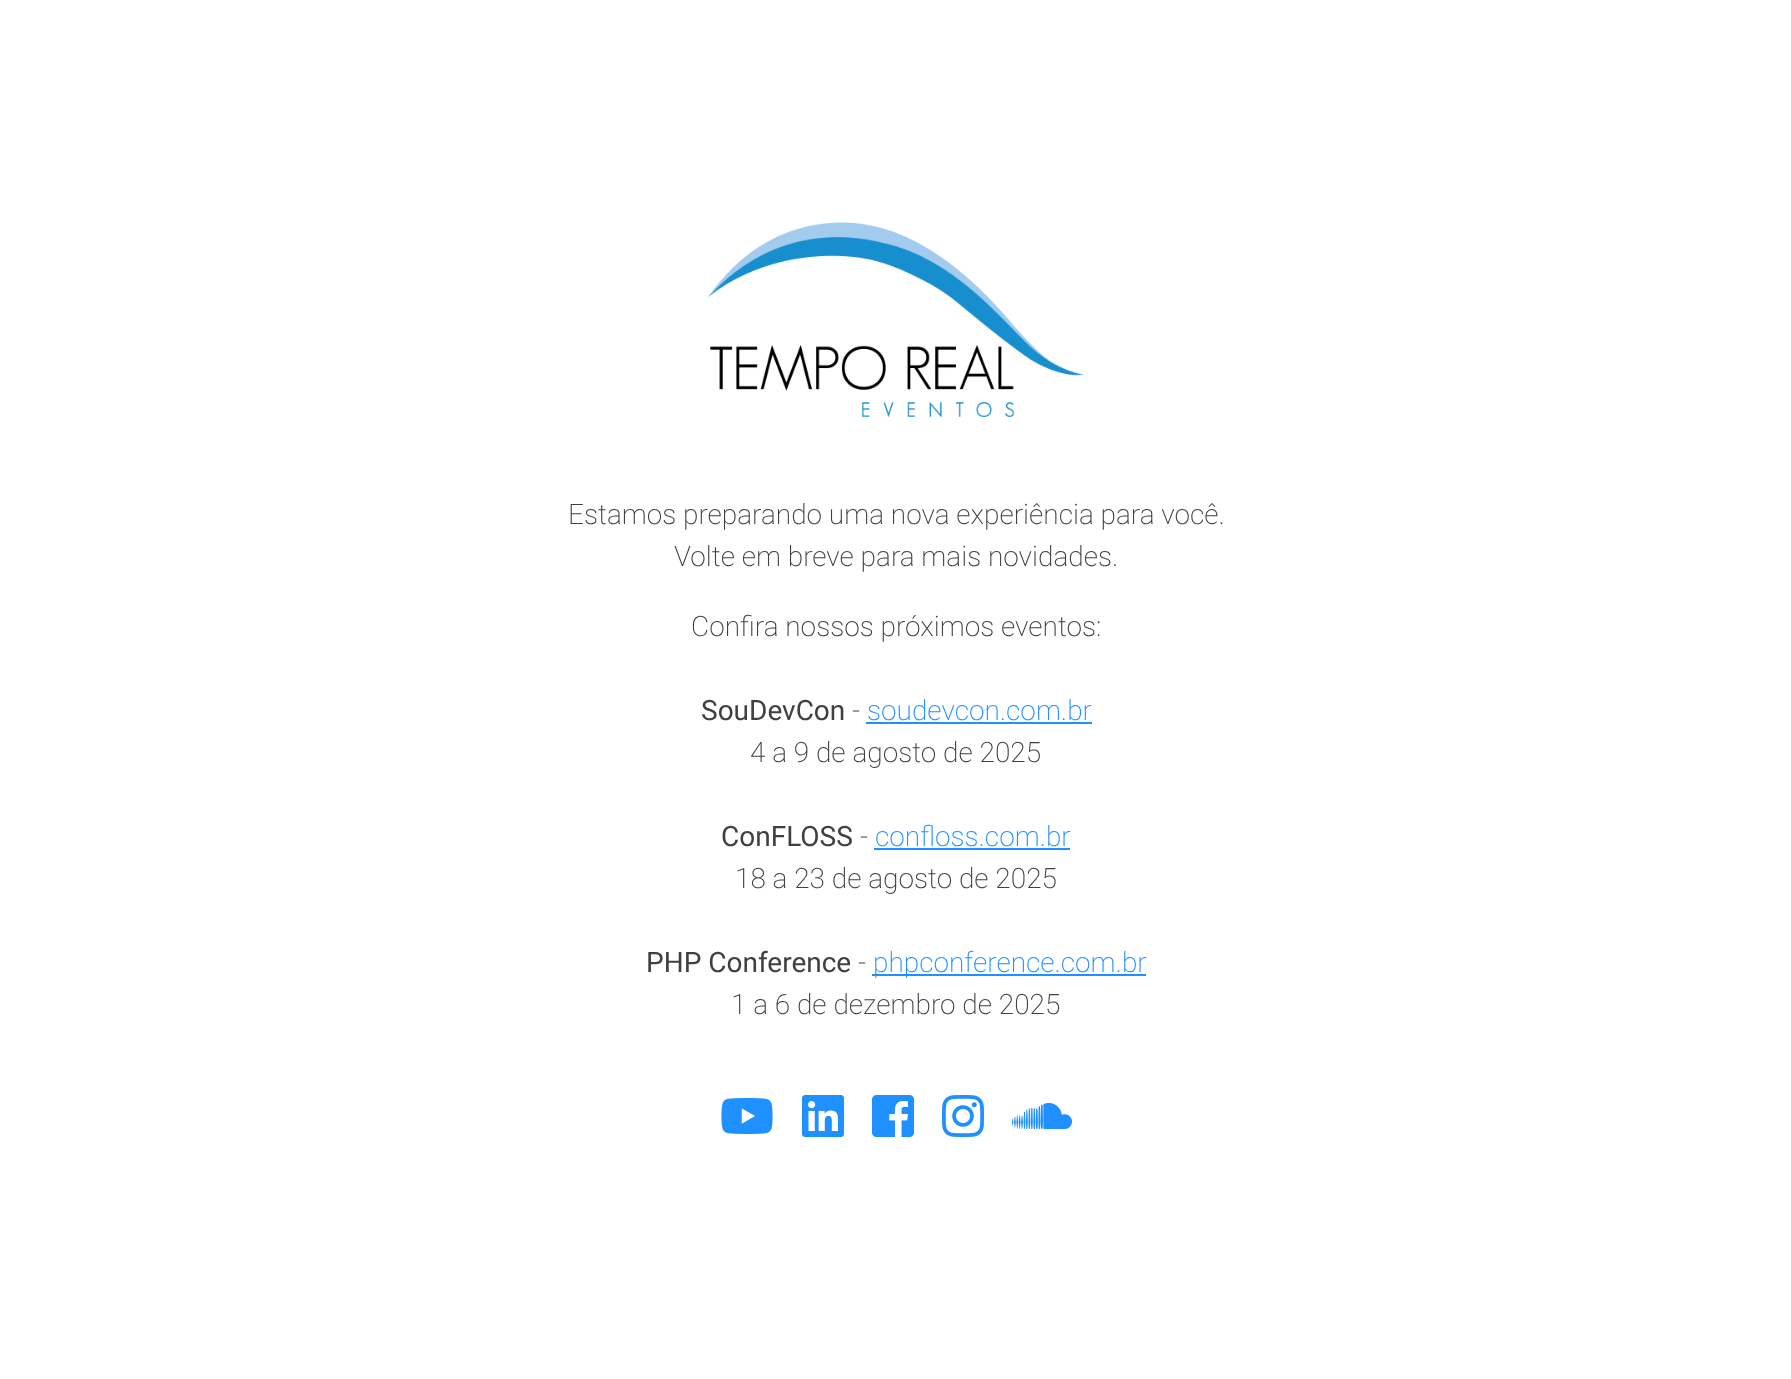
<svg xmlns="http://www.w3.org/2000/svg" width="1791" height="1379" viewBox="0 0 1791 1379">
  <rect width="100%" height="100%" fill="#ffffff"/>
  <image x="708" y="222" width="376" height="196" href="img1.png"/>
  <text x="568" y="524" font-family="Roboto" font-size="28" font-weight="200" fill="#404040">Estamos preparando uma nova experiência para você.</text>
  <text x="674" y="566" font-family="Roboto" font-size="28" font-weight="200" fill="#404040">Volte em breve para mais novidades.</text>
  <text x="691" y="636" font-family="Roboto" font-size="28" font-weight="200" fill="#404040">Confira nossos próximos eventos:</text>
  <text x="701" y="720" font-family="Roboto" font-size="28" fill="#404040">SouDevCon</text>
  <text x="852" y="720" font-family="Roboto" font-size="28" font-weight="200" fill="#404040">-</text>
  <text x="867" y="720" font-family="Roboto" font-size="28" font-weight="200" fill="#1e90ff">soudevcon.com.br</text>
  <rect x="866" y="722" width="226" height="2" fill="#1e90ff"/>
  <text x="750" y="762" font-family="Roboto" font-size="28" font-weight="200" fill="#404040">4 a 9 de agosto de 2025</text>
  <text x="721" y="846" font-family="Roboto" font-size="28" fill="#404040">ConFLOSS</text>
  <text x="860" y="846" font-family="Roboto" font-size="28" font-weight="200" fill="#404040">-</text>
  <text x="875" y="846" font-family="Roboto" font-size="28" font-weight="200" fill="#1e90ff">confloss.com.br</text>
  <rect x="874" y="848" width="196" height="2" fill="#1e90ff"/>
  <text x="735" y="888" font-family="Roboto" font-size="28" font-weight="200" fill="#404040">18 a 23 de agosto de 2025</text>
  <text x="646" y="972" font-family="Roboto" font-size="28" fill="#404040">PHP Conference</text>
  <text x="858" y="972" font-family="Roboto" font-size="28" font-weight="200" fill="#404040">-</text>
  <rect x="872" y="974" width="274" height="2" fill="#1e90ff"/>
  <text x="873" y="972" font-family="Roboto" font-size="28" font-weight="200" fill="#1e90ff">phpconference.com.br</text>
  <text x="731" y="1014" font-family="Roboto" font-size="28" font-weight="200" fill="#404040">1 a 6 de dezembro de 2025</text>
  <image x="721" y="1098" width="52" height="36" href="img2.png"/>
  <image x="802" y="1095" width="42" height="42" href="img3.png"/>
  <image x="872" y="1095" width="42" height="42" href="img4.png"/>
  <image x="942" y="1095" width="42" height="42" href="img5.png"/>
  <image x="1012" y="1103" width="60" height="26" href="img6.png"/>
</svg>
